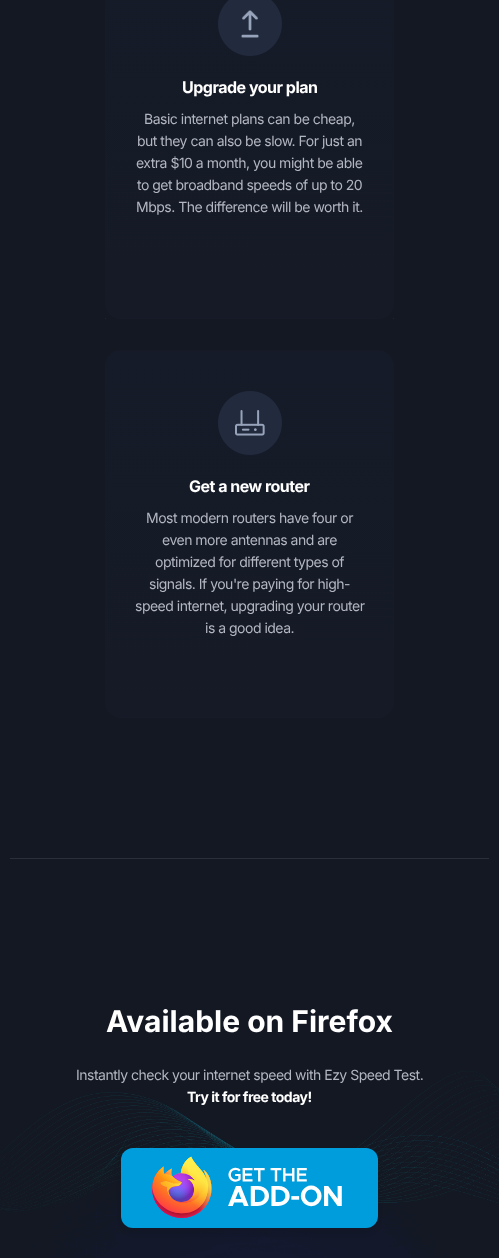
<svg xmlns="http://www.w3.org/2000/svg" width="499" height="1258" viewBox="0 0 499 1258">
  <defs>
    <clipPath id="clip1"><rect x="105" y="-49" width="289" height="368" rx="16"/></clipPath>
    <linearGradient id="g1" gradientUnits="userSpaceOnUse" x1="249" y1="-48" x2="250" y2="318"><stop offset="0" stop-color="#151b28"/><stop offset="1" stop-color="#151a26"/></linearGradient>
    <linearGradient id="g2" gradientUnits="userSpaceOnUse" x1="249" y1="318" x2="250" y2="684"><stop offset="0" stop-color="#151b28"/><stop offset="1" stop-color="#151a26"/></linearGradient>
    <clipPath id="clip2"><rect x="105" y="350" width="289" height="368" rx="16"/></clipPath>
    <linearGradient id="g3" gradientUnits="userSpaceOnUse" x1="249" y1="-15" x2="250" y2="351"><stop offset="0" stop-color="#151b28"/><stop offset="1" stop-color="#151a26"/></linearGradient>
    <linearGradient id="g4" gradientUnits="userSpaceOnUse" x1="249" y1="351" x2="250" y2="717"><stop offset="0" stop-color="#151b28"/><stop offset="1" stop-color="#151a26"/></linearGradient>
    <linearGradient id="g5" gradientUnits="userSpaceOnUse" x1="249" y1="717" x2="250" y2="1083"><stop offset="0" stop-color="#151b28"/><stop offset="1" stop-color="#151a26"/></linearGradient>
    <filter id="blur1" x="-50%" y="-200%" width="200%" height="500%"><feGaussianBlur stdDeviation="6"/></filter>
  </defs>
  <rect width="100%" height="100%" fill="#131823"/>
  <rect x="10" y="858" width="479" height="1" fill="#2b2f39"/>
  <g clip-path="url(#clip1)">
    <rect x="105" y="0" width="289" height="318" fill="url(#g1)"/>
    <rect x="115" y="318" width="269" height="1" fill="url(#g2)"/>
  </g>
  <image x="105" y="318" width="289" height="1" href="img1.png"/>
  <image x="218" y="0" width="64" height="56" href="img2.png"/>
  <text x="182" y="93" font-family="Inter" font-size="16" font-weight="bold" letter-spacing="-0.5" fill="#ffffff">Upgrade your plan</text>
  <text x="144" y="124" font-family="Inter" font-size="14" letter-spacing="-0.5" fill="#b2b6c1">Basic internet plans can be cheap,</text>
  <text x="137" y="146" font-family="Inter" font-size="14" letter-spacing="-0.5" fill="#b2b6c1">but they can also be slow. For just an</text>
  <text x="136" y="168" font-family="Inter" font-size="14" letter-spacing="-0.5" fill="#b2b6c1">extra $10 a month, you might be able</text>
  <text x="137" y="190" font-family="Inter" font-size="14" letter-spacing="-0.5" fill="#b2b6c1">to get broadband speeds of up to 20</text>
  <text x="136" y="212" font-family="Inter" font-size="14" letter-spacing="-0.5" fill="#b2b6c1">Mbps. The difference will be worth it.</text>
  <g clip-path="url(#clip2)">
    <rect x="115" y="350" width="269" height="1" fill="url(#g3)"/>
    <rect x="105" y="351" width="289" height="366" fill="url(#g4)"/>
    <rect x="115" y="717" width="269" height="1" fill="url(#g5)"/>
  </g>
  <image x="218" y="391" width="64" height="64" href="img3.png"/>
  <text x="189" y="492" font-family="Inter" font-size="16" font-weight="bold" letter-spacing="-0.5" fill="#ffffff">Get a new router</text>
  <text x="146" y="523" font-family="Inter" font-size="14" letter-spacing="-0.5" fill="#b2b6c1">Most modern routers have four or</text>
  <text x="162" y="545" font-family="Inter" font-size="14" letter-spacing="-0.5" fill="#b2b6c1">even more antennas and are</text>
  <text x="155" y="567" font-family="Inter" font-size="14" letter-spacing="-0.5" fill="#b2b6c1">optimized for different types of</text>
  <text x="149" y="589" font-family="Inter" font-size="14" letter-spacing="-0.5" fill="#b2b6c1">signals. If you're paying for high-</text>
  <text x="135" y="611" font-family="Inter" font-size="14" letter-spacing="-0.5" fill="#b2b6c1">speed internet, upgrading your router</text>
  <text x="205" y="633" font-family="Inter" font-size="14" letter-spacing="-0.5" fill="#b2b6c1">is a good idea.</text>
  <image x="26" y="1145" width="425" height="113" href="img4.png"/>
  <image x="0" y="1071" width="499" height="141" href="img5.png"/>
  <text x="106" y="1032" font-family="Inter" font-size="30" font-weight="bold" fill="#ffffff">Available on Firefox</text>
  <text x="76" y="1080" font-family="Inter" font-size="14" letter-spacing="-0.5" fill="#b2b6c1">Instantly check your internet speed with Ezy Speed Test.</text>
  <text x="187" y="1102" font-family="Inter" font-size="14" font-weight="bold" letter-spacing="-0.5" fill="#ffffff">Try it for free today!</text>
  <rect x="121" y="1152" width="257" height="80" rx="12" fill="#000000" fill-opacity="0.1" filter="url(#blur1)"/>
  <rect x="121" y="1148" width="257" height="80" rx="12" fill="#009ddc"/>
  <image x="152" y="1156" width="190" height="62" href="img6.png"/>
</svg>
